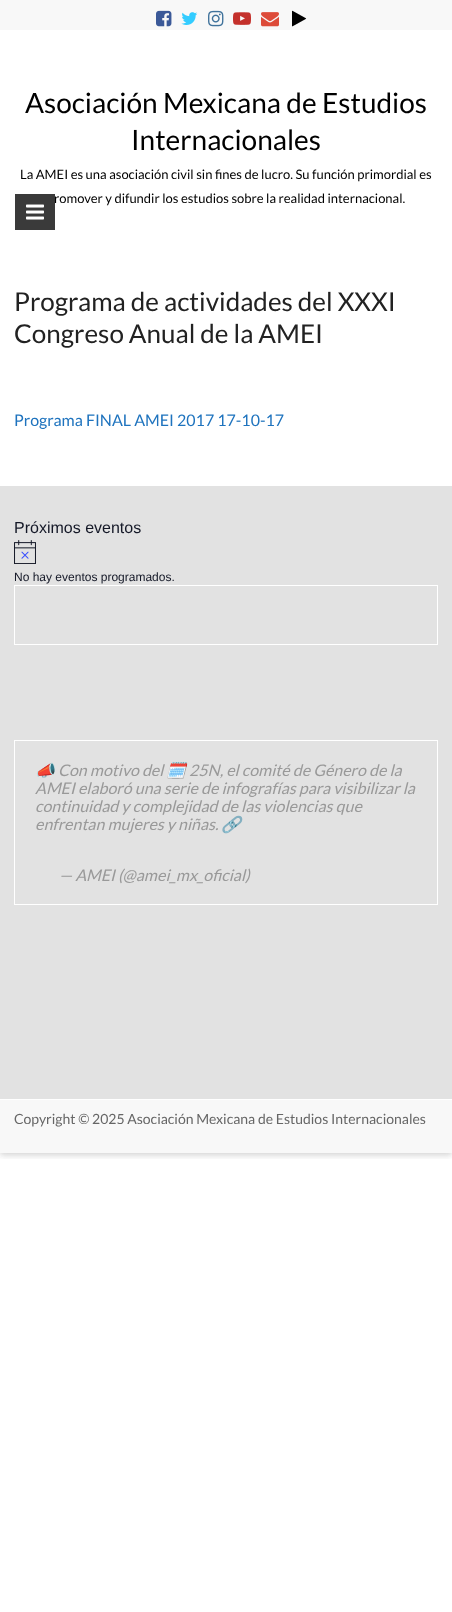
<svg xmlns="http://www.w3.org/2000/svg" width="452" height="1612" viewBox="0 0 452 1612">
  <defs>
    <clipPath id="clip1"><rect x="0" y="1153" width="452" height="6"/></clipPath>
    <filter id="blur1" x="-50%" y="-200%" width="200%" height="500%"><feGaussianBlur stdDeviation="3"/></filter>
  </defs>
  <rect width="100%" height="100%" fill="#ffffff"/>
  <g clip-path="url(#clip1)">
    <rect x="0" y="2" width="452" height="1153" fill="#646464" fill-opacity="0.3" filter="url(#blur1)"/>
  </g>
  <rect x="0" y="0" width="452" height="30" fill="#f8f8f8"/>
  <image x="156" y="10" width="16" height="17" href="img1.png"/>
  <image x="181" y="12" width="17" height="13" href="img2.png"/>
  <image x="208" y="10" width="16" height="17" href="img3.png"/>
  <image x="233" y="12" width="18" height="13" href="img4.png"/>
  <image x="261" y="12" width="18" height="15" href="img5.png"/>
  <image x="292" y="10" width="15" height="17" href="img6.png"/>
  <text x="25" y="113" font-family="Lato" font-size="28" fill="#000000">Asociación Mexicana de Estudios</text>
  <text x="131" y="150" font-family="Lato" font-size="28" fill="#000000">Internacionales</text>
  <text x="20" y="179" font-family="Lato" font-size="13" fill="#000000">La AMEI es una asociación civil sin fines de lucro. Su función primordial es</text>
  <text x="54" y="203" font-family="Lato" font-size="13" fill="#000000">romover y difundir los estudios sobre la realidad internacional.</text>
  <rect x="15" y="194" width="40" height="36" fill="#3a3a3a"/>
  <image x="26" y="204" width="18" height="16" href="img7.png"/>
  <text x="14" y="311" font-family="Lato" font-size="26" fill="#222222">Programa de actividades del XXXI</text>
  <text x="14" y="343" font-family="Lato" font-size="26" fill="#222222">Congreso Anual de la AMEI</text>
  <text x="14" y="426" font-family="Lato" font-size="16" fill="#1e73be">Programa FINAL AMEI 2017 17-10-17</text>
  <rect x="0" y="486" width="452" height="613" fill="#e2e2e2"/>
  <text x="14" y="533" font-family="Liberation Sans" font-size="16" fill="#141827">Próximos eventos</text>
  <image x="14" y="540" width="22" height="24" href="img8.png"/>
  <text x="14" y="581" font-family="Liberation Sans" font-size="12" fill="#141827">No hay eventos programados.</text>
  <rect x="14.5" y="585.5" width="423" height="59" fill="none" stroke="#ffffff"/>
  <rect x="14.5" y="740.5" width="423" height="164" fill="none" stroke="#ffffff"/>
  <text x="35" y="776" font-family="Noto Color Emoji" font-size="16" font-style="italic" fill="#999999">📣</text>
  <text x="58" y="776" font-family="Lato" font-size="16" font-style="italic" fill="#999999">Con motivo del</text>
  <text x="166" y="776" font-family="Noto Color Emoji" font-size="16" font-style="italic" fill="#999999">🗓️</text>
  <text x="189" y="776" font-family="Lato" font-size="16" font-style="italic" fill="#999999">25N, el comité de Género de la</text>
  <text x="35" y="794" font-family="Lato" font-size="16" font-style="italic" fill="#999999">AMEI elaboró una serie de infografías para visibilizar la</text>
  <text x="35" y="812" font-family="Lato" font-size="16" font-style="italic" fill="#999999">continuidad y complejidad de las violencias que</text>
  <text x="35" y="830" font-family="Lato" font-size="16" font-style="italic" fill="#999999">enfrentan mujeres y niñas.</text>
  <text x="221" y="830" font-family="Noto Color Emoji" font-size="16" font-style="italic" fill="#999999">🔗</text>
  <text x="59" y="881" font-family="Lato" font-size="16" font-style="italic" fill="#999999">— AMEI (@amei_mx_oficial)</text>
  <rect x="0" y="1100" width="452" height="53" fill="#f8f8f8"/>
  <text x="14" y="1124" font-family="Lato" font-size="14" fill="#666666">Copyright © 2025 Asociación Mexicana de Estudios Internacionales</text>
</svg>
